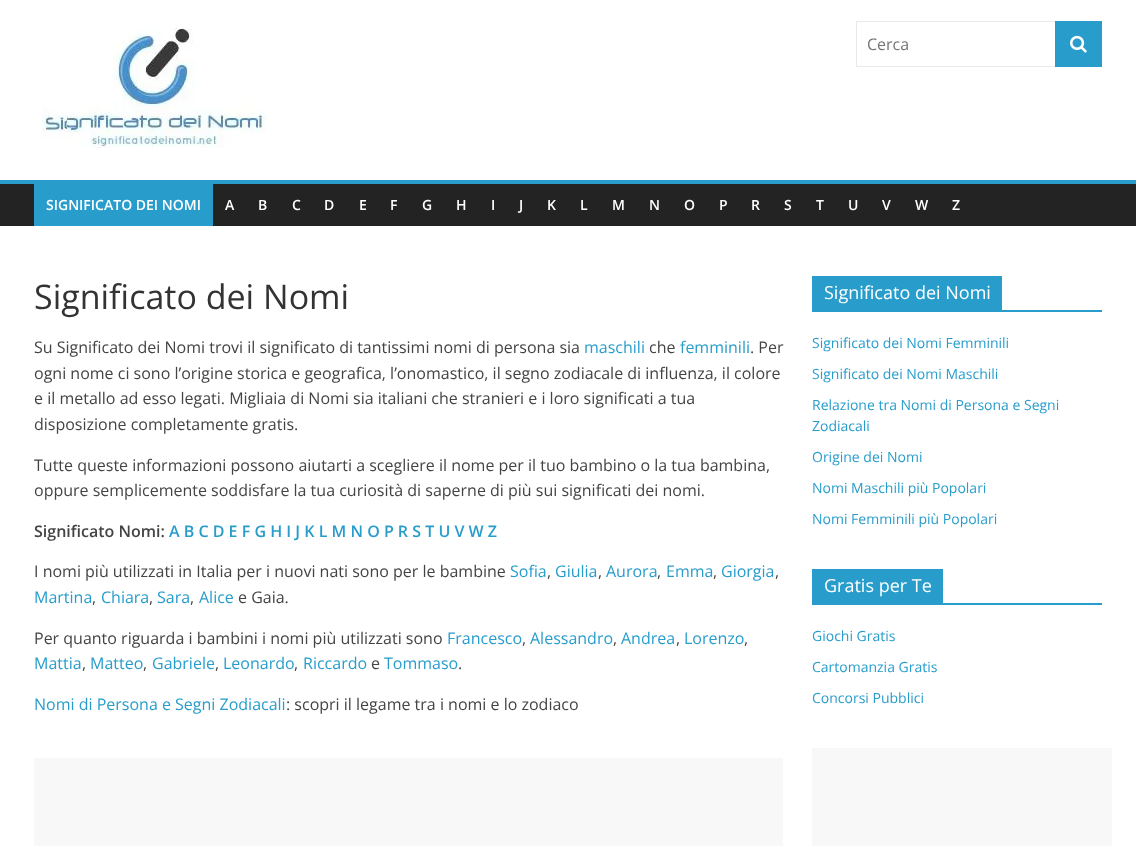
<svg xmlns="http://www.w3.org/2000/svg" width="1136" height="846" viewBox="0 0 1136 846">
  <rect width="100%" height="100%" fill="#ffffff"/>
  <image x="42" y="28" width="224" height="120" href="img1.png"/>
  <rect x="856.5" y="21.5" width="199" height="45" fill="none" stroke="#eaeaea"/>
  <text x="867" y="50" font-family="Open Sans" font-size="16" fill="#757575">Cerca</text>
  <rect x="1055" y="21" width="47" height="46" fill="#289dcc"/>
  <image x="1070" y="35" width="17" height="18" href="img2.png"/>
  <rect x="0" y="184" width="1136" height="42" fill="#232323"/>
  <rect x="0" y="180" width="1136" height="4" fill="#289dcc"/>
  <rect x="34" y="184" width="179" height="42" fill="#289dcc"/>
  <text x="46" y="210" font-family="Open Sans" font-size="14" font-weight="600" fill="#ffffff">SIGNIFICATO DEI NOMI</text>
  <text x="225" y="210" font-family="Open Sans" font-size="14" font-weight="600" fill="#ffffff">A</text>
  <text x="258" y="210" font-family="Open Sans" font-size="14" font-weight="600" fill="#ffffff">B</text>
  <text x="292" y="210" font-family="Open Sans" font-size="14" font-weight="600" fill="#ffffff">C</text>
  <text x="324" y="210" font-family="Open Sans" font-size="14" font-weight="600" fill="#ffffff">D</text>
  <text x="359" y="210" font-family="Open Sans" font-size="14" font-weight="600" fill="#ffffff">E</text>
  <text x="390" y="210" font-family="Open Sans" font-size="14" font-weight="600" fill="#ffffff">F</text>
  <text x="422" y="210" font-family="Open Sans" font-size="14" font-weight="600" fill="#ffffff">G</text>
  <text x="456" y="210" font-family="Open Sans" font-size="14" font-weight="600" fill="#ffffff">H</text>
  <text x="491" y="210" font-family="Open Sans" font-size="14" font-weight="600" fill="#ffffff">I</text>
  <text x="519" y="210" font-family="Open Sans" font-size="14" font-weight="600" fill="#ffffff">J</text>
  <text x="547" y="210" font-family="Open Sans" font-size="14" font-weight="600" fill="#ffffff">K</text>
  <text x="580" y="210" font-family="Open Sans" font-size="14" font-weight="600" fill="#ffffff">L</text>
  <text x="612" y="210" font-family="Open Sans" font-size="14" font-weight="600" fill="#ffffff">M</text>
  <text x="649" y="210" font-family="Open Sans" font-size="14" font-weight="600" fill="#ffffff">N</text>
  <text x="684" y="210" font-family="Open Sans" font-size="14" font-weight="600" fill="#ffffff">O</text>
  <text x="719" y="210" font-family="Open Sans" font-size="14" font-weight="600" fill="#ffffff">P</text>
  <text x="751" y="210" font-family="Open Sans" font-size="14" font-weight="600" fill="#ffffff">R</text>
  <text x="784" y="210" font-family="Open Sans" font-size="14" font-weight="600" fill="#ffffff">S</text>
  <text x="816" y="210" font-family="Open Sans" font-size="14" font-weight="600" fill="#ffffff">T</text>
  <text x="848" y="210" font-family="Open Sans" font-size="14" font-weight="600" fill="#ffffff">U</text>
  <text x="882" y="210" font-family="Open Sans" font-size="14" font-weight="600" fill="#ffffff">V</text>
  <text x="915" y="210" font-family="Open Sans" font-size="14" font-weight="600" fill="#ffffff">W</text>
  <text x="952" y="210" font-family="Open Sans" font-size="14" font-weight="600" fill="#ffffff">Z</text>
  <text x="34" y="309" font-family="Open Sans" font-size="34" fill="#333333">Significato dei Nomi</text>
  <text x="34" y="353" font-family="Open Sans" font-size="16" fill="#444444">Su Significato dei Nomi trovi il significato di tantissimi nomi di persona sia</text>
  <text x="584" y="353" font-family="Open Sans" font-size="16" fill="#289dcc">maschili</text>
  <text x="649" y="353" font-family="Open Sans" font-size="16" fill="#444444">che</text>
  <text x="680" y="353" font-family="Open Sans" font-size="16" fill="#289dcc">femminili</text>
  <text x="750" y="353" font-family="Open Sans" font-size="16" fill="#444444">. Per</text>
  <text x="34" y="379" font-family="Open Sans" font-size="16" fill="#444444">ogni nome ci sono l’origine storica e geografica, l’onomastico, il segno zodiacale di influenza, il colore</text>
  <text x="34" y="404" font-family="Open Sans" font-size="16" fill="#444444">e il metallo ad esso legati. Migliaia di Nomi sia italiani che stranieri e i loro significati a tua</text>
  <text x="34" y="430" font-family="Open Sans" font-size="16" fill="#444444">disposizione completamente gratis.</text>
  <text x="34" y="471" font-family="Open Sans" font-size="16" fill="#444444">Tutte queste informazioni possono aiutarti a scegliere il nome per il tuo bambino o la tua bambina,</text>
  <text x="34" y="496" font-family="Open Sans" font-size="16" fill="#444444">oppure semplicemente soddisfare la tua curiosità di saperne di più sui significati dei nomi.</text>
  <text x="34" y="537" font-family="Open Sans" font-size="16" font-weight="600" fill="#444444">Significato Nomi:</text>
  <text x="169" y="537" font-family="Open Sans" font-size="16" font-weight="600" fill="#289dcc">A B C D E F G H I J K L M N O P R S T U V W Z</text>
  <text x="34" y="577" font-family="Open Sans" font-size="16" fill="#444444">I nomi più utilizzati in Italia per i nuovi nati sono per le bambine</text>
  <text x="510" y="577" font-family="Open Sans" font-size="16" fill="#289dcc">Sofia</text>
  <text x="547" y="577" font-family="Open Sans" font-size="16" fill="#444444">,</text>
  <text x="555" y="577" font-family="Open Sans" font-size="16" fill="#289dcc">Giulia</text>
  <text x="598" y="577" font-family="Open Sans" font-size="16" fill="#444444">,</text>
  <text x="606" y="577" font-family="Open Sans" font-size="16" fill="#289dcc">Aurora</text>
  <text x="657" y="577" font-family="Open Sans" font-size="16" fill="#444444">,</text>
  <text x="666" y="577" font-family="Open Sans" font-size="16" fill="#289dcc">Emma</text>
  <text x="713" y="577" font-family="Open Sans" font-size="16" fill="#444444">,</text>
  <text x="721" y="577" font-family="Open Sans" font-size="16" fill="#289dcc">Giorgia</text>
  <text x="775" y="577" font-family="Open Sans" font-size="16" fill="#444444">,</text>
  <text x="34" y="603" font-family="Open Sans" font-size="16" fill="#289dcc">Martina</text>
  <text x="92" y="603" font-family="Open Sans" font-size="16" fill="#444444">,</text>
  <text x="101" y="603" font-family="Open Sans" font-size="16" fill="#289dcc">Chiara</text>
  <text x="149" y="603" font-family="Open Sans" font-size="16" fill="#444444">,</text>
  <text x="157" y="603" font-family="Open Sans" font-size="16" fill="#289dcc">Sara</text>
  <text x="190" y="603" font-family="Open Sans" font-size="16" fill="#444444">,</text>
  <text x="199" y="603" font-family="Open Sans" font-size="16" fill="#289dcc">Alice</text>
  <text x="238" y="603" font-family="Open Sans" font-size="16" fill="#444444">e Gaia.</text>
  <text x="34" y="644" font-family="Open Sans" font-size="16" fill="#444444">Per quanto riguarda i bambini i nomi più utilizzati sono</text>
  <text x="447" y="644" font-family="Open Sans" font-size="16" fill="#289dcc">Francesco</text>
  <text x="522" y="644" font-family="Open Sans" font-size="16" fill="#444444">,</text>
  <text x="530" y="644" font-family="Open Sans" font-size="16" fill="#289dcc">Alessandro</text>
  <text x="613" y="644" font-family="Open Sans" font-size="16" fill="#444444">,</text>
  <text x="621" y="644" font-family="Open Sans" font-size="16" fill="#289dcc">Andrea</text>
  <text x="676" y="644" font-family="Open Sans" font-size="16" fill="#444444">,</text>
  <text x="684" y="644" font-family="Open Sans" font-size="16" fill="#289dcc">Lorenzo</text>
  <text x="744" y="644" font-family="Open Sans" font-size="16" fill="#444444">,</text>
  <text x="34" y="669" font-family="Open Sans" font-size="16" fill="#289dcc">Mattia</text>
  <text x="82" y="669" font-family="Open Sans" font-size="16" fill="#444444">,</text>
  <text x="90" y="669" font-family="Open Sans" font-size="16" fill="#289dcc">Matteo</text>
  <text x="143" y="669" font-family="Open Sans" font-size="16" fill="#444444">,</text>
  <text x="152" y="669" font-family="Open Sans" font-size="16" fill="#289dcc">Gabriele</text>
  <text x="215" y="669" font-family="Open Sans" font-size="16" fill="#444444">,</text>
  <text x="223" y="669" font-family="Open Sans" font-size="16" fill="#289dcc">Leonardo</text>
  <text x="294" y="669" font-family="Open Sans" font-size="16" fill="#444444">,</text>
  <text x="303" y="669" font-family="Open Sans" font-size="16" fill="#289dcc">Riccardo</text>
  <text x="371" y="669" font-family="Open Sans" font-size="16" fill="#444444">e</text>
  <text x="384" y="669" font-family="Open Sans" font-size="16" fill="#289dcc">Tommaso</text>
  <text x="458" y="669" font-family="Open Sans" font-size="16" fill="#444444">.</text>
  <text x="34" y="710" font-family="Open Sans" font-size="16" fill="#289dcc">Nomi di Persona e Segni Zodiacali</text>
  <text x="286" y="710" font-family="Open Sans" font-size="16" fill="#444444">: scopri il legame tra i nomi e lo zodiaco</text>
  <rect x="34" y="758" width="749" height="88" fill="#f8f8f8"/>
  <rect x="812" y="310" width="290" height="2" fill="#289dcc"/>
  <rect x="812" y="276" width="190" height="34" fill="#289dcc"/>
  <text x="824" y="299" font-family="Open Sans" font-size="18" fill="#ffffff">Significato dei Nomi</text>
  <text x="812" y="348" font-family="Open Sans" font-size="14" fill="#289dcc">Significato dei Nomi Femminili</text>
  <text x="812" y="379" font-family="Open Sans" font-size="14" fill="#289dcc">Significato dei Nomi Maschili</text>
  <text x="812" y="410" font-family="Open Sans" font-size="14" fill="#289dcc">Relazione tra Nomi di Persona e Segni</text>
  <text x="812" y="431" font-family="Open Sans" font-size="14" fill="#289dcc">Zodiacali</text>
  <text x="812" y="462" font-family="Open Sans" font-size="14" fill="#289dcc">Origine dei Nomi</text>
  <text x="812" y="493" font-family="Open Sans" font-size="14" fill="#289dcc">Nomi Maschili più Popolari</text>
  <text x="812" y="524" font-family="Open Sans" font-size="14" fill="#289dcc">Nomi Femminili più Popolari</text>
  <rect x="812" y="603" width="290" height="2" fill="#289dcc"/>
  <rect x="812" y="569" width="131" height="34" fill="#289dcc"/>
  <text x="824" y="592" font-family="Open Sans" font-size="18" fill="#ffffff">Gratis per Te</text>
  <text x="812" y="641" font-family="Open Sans" font-size="14" fill="#289dcc">Giochi Gratis</text>
  <text x="812" y="672" font-family="Open Sans" font-size="14" fill="#289dcc">Cartomanzia Gratis</text>
  <text x="812" y="703" font-family="Open Sans" font-size="14" fill="#289dcc">Concorsi Pubblici</text>
  <rect x="812" y="748" width="300" height="98" fill="#f8f8f8"/>
</svg>
